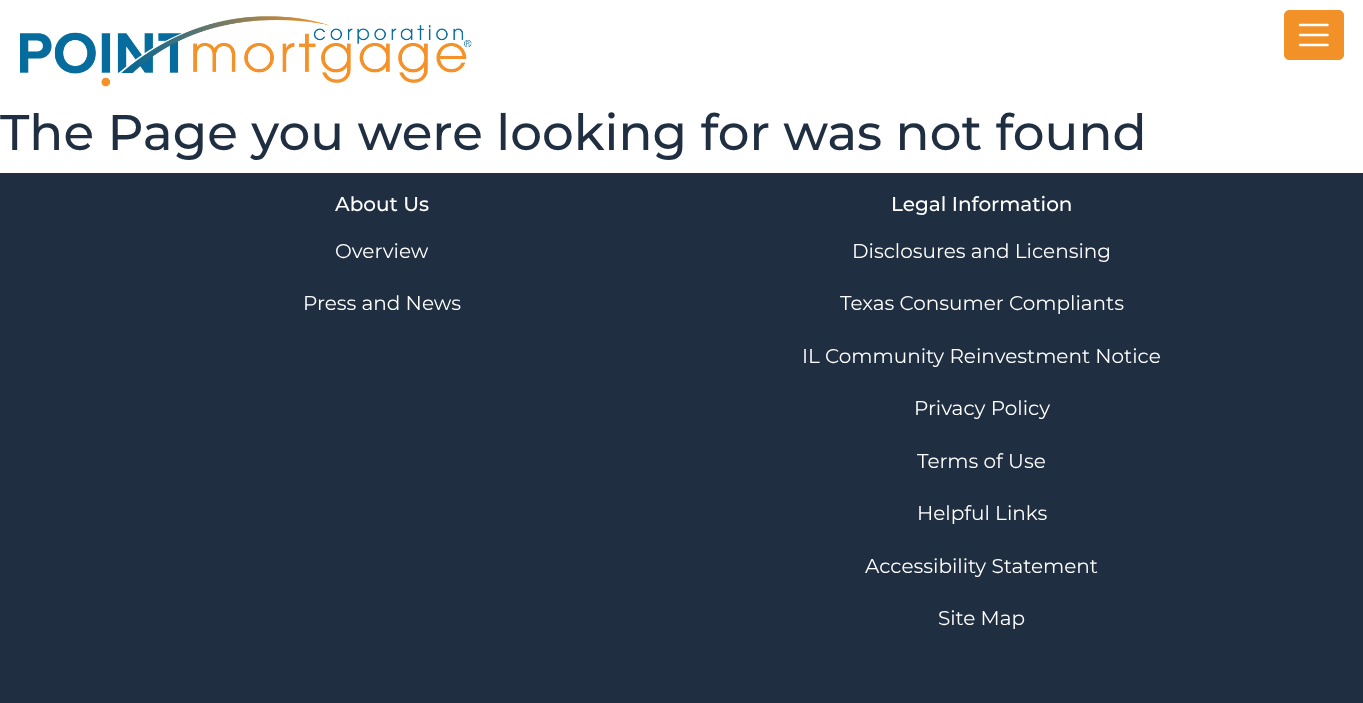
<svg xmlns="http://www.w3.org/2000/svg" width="1363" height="703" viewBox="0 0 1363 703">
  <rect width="100%" height="100%" fill="#ffffff"/>
  <image x="20" y="16" width="452" height="71" href="img1.png"/>
  <rect x="1284.5" y="10.5" width="59" height="49" rx="4.5" fill="#f39129" stroke="#f39129"/>
  <path d="M1300 25H1327.5M1300 35H1327.5M1300 45H1327.5" fill="none" stroke="#ffffff" stroke-width="2.5" stroke-linecap="round"/>
  <text x="0" y="150" font-family="Montserrat" font-size="50" font-weight="500" fill="#1f2e41">The Page you were looking for was not found</text>
  <rect x="0" y="173" width="1363" height="530" fill="#1f2e41"/>
  <text x="335" y="211" font-family="Montserrat" font-size="20" font-weight="500" fill="#ffffff">About Us</text>
  <text x="335" y="258" font-family="Montserrat" font-size="20" fill="#ffffff">Overview</text>
  <text x="303" y="310" font-family="Montserrat" font-size="20" fill="#ffffff">Press and News</text>
  <text x="891" y="211" font-family="Montserrat" font-size="20" font-weight="500" fill="#ffffff">Legal Information</text>
  <text x="852" y="258" font-family="Montserrat" font-size="20" fill="#ffffff">Disclosures and Licensing</text>
  <text x="840" y="310" font-family="Montserrat" font-size="20" fill="#ffffff">Texas Consumer Compliants</text>
  <text x="802" y="363" font-family="Montserrat" font-size="20" fill="#ffffff">IL Community Reinvestment Notice</text>
  <text x="914" y="415" font-family="Montserrat" font-size="20" fill="#ffffff">Privacy Policy</text>
  <text x="917" y="468" font-family="Montserrat" font-size="20" fill="#ffffff">Terms of Use</text>
  <text x="917" y="520" font-family="Montserrat" font-size="20" fill="#ffffff">Helpful Links</text>
  <text x="865" y="573" font-family="Montserrat" font-size="20" fill="#ffffff">Accessibility Statement</text>
  <text x="938" y="625" font-family="Montserrat" font-size="20" fill="#ffffff">Site Map</text>
</svg>
